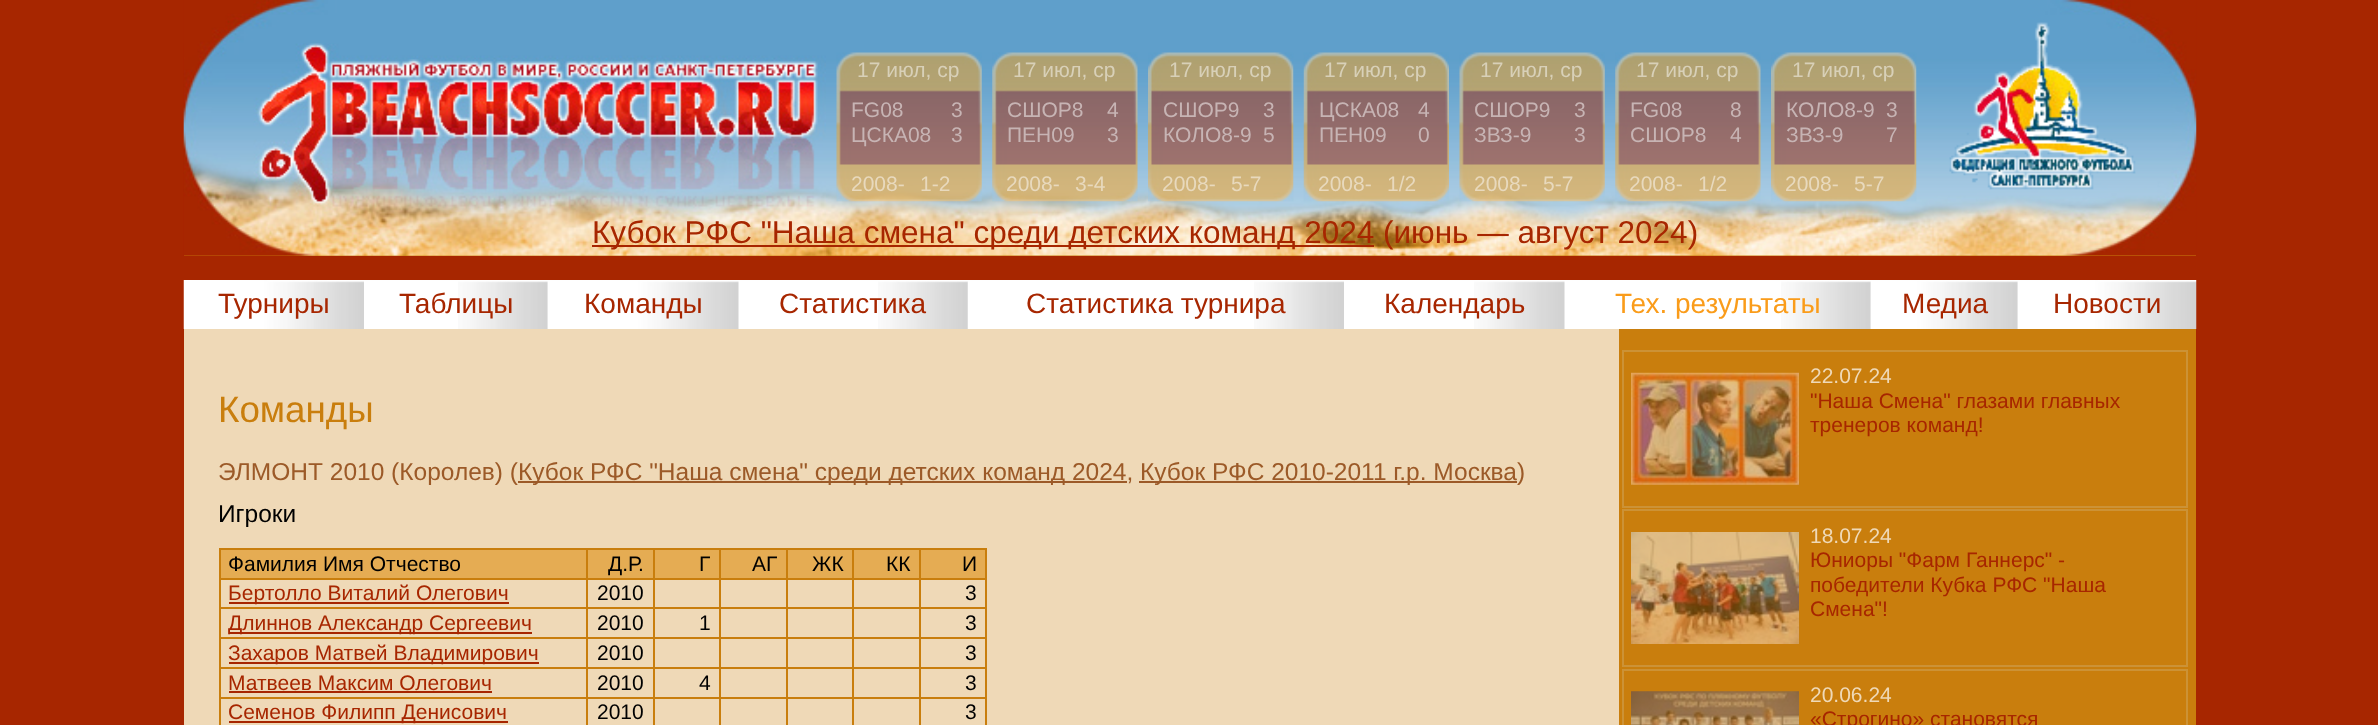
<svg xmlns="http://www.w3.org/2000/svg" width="2378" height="725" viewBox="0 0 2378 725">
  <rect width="100%" height="100%" fill="#a72600"/>
  <rect x="184" y="255" width="2012" height="470" fill="#c97e0d"/>
  <image x="183" y="0" width="2014" height="256" href="img1.png"/>
  <image x="183" y="43" width="643" height="213" href="img2.png"/>
  <image x="836" y="52" width="146" height="150" href="img3.png"/>
  <text x="857" y="77" font-family="Liberation Sans" font-size="21" fill="#d8d0b8">17 июл, ср</text>
  <text x="851" y="117" font-family="Liberation Sans" font-size="21" fill="#c7b4b4">FG08</text>
  <text x="951" y="117" font-family="Liberation Sans" font-size="21" fill="#c7b4b4">3</text>
  <text x="851" y="142" font-family="Liberation Sans" font-size="21" fill="#c7b4b4">ЦСКА08</text>
  <text x="951" y="142" font-family="Liberation Sans" font-size="21" fill="#c7b4b4">3</text>
  <text x="851" y="191" font-family="Liberation Sans" font-size="21" fill="#e8d9bd">2008-</text>
  <text x="920" y="191" font-family="Liberation Sans" font-size="21" fill="#e8d9bd">1-2</text>
  <image x="992" y="52" width="146" height="150" href="img4.png"/>
  <text x="1013" y="77" font-family="Liberation Sans" font-size="21" fill="#d8d0b8">17 июл, ср</text>
  <text x="1007" y="117" font-family="Liberation Sans" font-size="21" fill="#c7b4b4">СШОР8</text>
  <text x="1107" y="117" font-family="Liberation Sans" font-size="21" fill="#c7b4b4">4</text>
  <text x="1007" y="142" font-family="Liberation Sans" font-size="21" fill="#c7b4b4">ПЕН09</text>
  <text x="1107" y="142" font-family="Liberation Sans" font-size="21" fill="#c7b4b4">3</text>
  <text x="1006" y="191" font-family="Liberation Sans" font-size="21" fill="#e8d9bd">2008-</text>
  <text x="1075" y="191" font-family="Liberation Sans" font-size="21" fill="#e8d9bd">3-4</text>
  <image x="1148" y="52" width="146" height="150" href="img5.png"/>
  <text x="1169" y="77" font-family="Liberation Sans" font-size="21" fill="#d8d0b8">17 июл, ср</text>
  <text x="1163" y="117" font-family="Liberation Sans" font-size="21" fill="#c7b4b4">СШОР9</text>
  <text x="1263" y="117" font-family="Liberation Sans" font-size="21" fill="#c7b4b4">3</text>
  <text x="1163" y="142" font-family="Liberation Sans" font-size="21" fill="#c7b4b4">КОЛО8-9</text>
  <text x="1263" y="142" font-family="Liberation Sans" font-size="21" fill="#c7b4b4">5</text>
  <text x="1162" y="191" font-family="Liberation Sans" font-size="21" fill="#e8d9bd">2008-</text>
  <text x="1231" y="191" font-family="Liberation Sans" font-size="21" fill="#e8d9bd">5-7</text>
  <image x="1303" y="52" width="146" height="150" href="img6.png"/>
  <text x="1324" y="77" font-family="Liberation Sans" font-size="21" fill="#d8d0b8">17 июл, ср</text>
  <text x="1319" y="117" font-family="Liberation Sans" font-size="21" fill="#c7b4b4">ЦСКА08</text>
  <text x="1418" y="117" font-family="Liberation Sans" font-size="21" fill="#c7b4b4">4</text>
  <text x="1319" y="142" font-family="Liberation Sans" font-size="21" fill="#c7b4b4">ПЕН09</text>
  <text x="1418" y="142" font-family="Liberation Sans" font-size="21" fill="#c7b4b4">0</text>
  <text x="1318" y="191" font-family="Liberation Sans" font-size="21" fill="#e8d9bd">2008-</text>
  <text x="1387" y="191" font-family="Liberation Sans" font-size="21" fill="#e8d9bd">1/2</text>
  <image x="1459" y="52" width="146" height="150" href="img7.png"/>
  <text x="1480" y="77" font-family="Liberation Sans" font-size="21" fill="#d8d0b8">17 июл, ср</text>
  <text x="1474" y="117" font-family="Liberation Sans" font-size="21" fill="#c7b4b4">СШОР9</text>
  <text x="1574" y="117" font-family="Liberation Sans" font-size="21" fill="#c7b4b4">3</text>
  <text x="1474" y="142" font-family="Liberation Sans" font-size="21" fill="#c7b4b4">ЗВЗ-9</text>
  <text x="1574" y="142" font-family="Liberation Sans" font-size="21" fill="#c7b4b4">3</text>
  <text x="1474" y="191" font-family="Liberation Sans" font-size="21" fill="#e8d9bd">2008-</text>
  <text x="1543" y="191" font-family="Liberation Sans" font-size="21" fill="#e8d9bd">5-7</text>
  <image x="1615" y="52" width="146" height="150" href="img8.png"/>
  <text x="1636" y="77" font-family="Liberation Sans" font-size="21" fill="#d8d0b8">17 июл, ср</text>
  <text x="1630" y="117" font-family="Liberation Sans" font-size="21" fill="#c7b4b4">FG08</text>
  <text x="1730" y="117" font-family="Liberation Sans" font-size="21" fill="#c7b4b4">8</text>
  <text x="1630" y="142" font-family="Liberation Sans" font-size="21" fill="#c7b4b4">СШОР8</text>
  <text x="1730" y="142" font-family="Liberation Sans" font-size="21" fill="#c7b4b4">4</text>
  <text x="1629" y="191" font-family="Liberation Sans" font-size="21" fill="#e8d9bd">2008-</text>
  <text x="1698" y="191" font-family="Liberation Sans" font-size="21" fill="#e8d9bd">1/2</text>
  <image x="1771" y="52" width="146" height="150" href="img9.png"/>
  <text x="1792" y="77" font-family="Liberation Sans" font-size="21" fill="#d8d0b8">17 июл, ср</text>
  <text x="1786" y="117" font-family="Liberation Sans" font-size="21" fill="#c7b4b4">КОЛО8-9</text>
  <text x="1886" y="117" font-family="Liberation Sans" font-size="21" fill="#c7b4b4">3</text>
  <text x="1786" y="142" font-family="Liberation Sans" font-size="21" fill="#c7b4b4">ЗВЗ-9</text>
  <text x="1886" y="142" font-family="Liberation Sans" font-size="21" fill="#c7b4b4">7</text>
  <text x="1785" y="191" font-family="Liberation Sans" font-size="21" fill="#e8d9bd">2008-</text>
  <text x="1854" y="191" font-family="Liberation Sans" font-size="21" fill="#e8d9bd">5-7</text>
  <image x="1949" y="22" width="187" height="168" href="img10.png"/>
  <rect x="592" y="245" width="782" height="2" fill="#a72600"/>
  <text x="592" y="243" font-family="Liberation Sans" font-size="31.5" fill="#a72600">Кубок РФС "Наша смена" среди детских команд 2024 (июнь — август 2024)</text>
  <rect x="184" y="256" width="2012" height="24" fill="#a72600"/>
  <image x="183" y="280" width="181" height="49" href="img11.png"/>
  <text x="218" y="313" font-family="Liberation Sans" font-size="28" fill="#a72600">Турниры</text>
  <rect x="364" y="280" width="1654" height="49" fill="#ffffff"/>
  <image x="458" y="281" width="90" height="48" href="img12.png"/>
  <text x="399" y="313" font-family="Liberation Sans" font-size="28" fill="#a72600">Таблицы</text>
  <image x="547" y="281" width="192" height="48" href="img13.png"/>
  <text x="584" y="313" font-family="Liberation Sans" font-size="28" fill="#a72600">Команды</text>
  <image x="878" y="281" width="90" height="48" href="img14.png"/>
  <text x="779" y="313" font-family="Liberation Sans" font-size="28" fill="#a72600">Статистика</text>
  <image x="1254" y="281" width="90" height="48" href="img15.png"/>
  <text x="1026" y="313" font-family="Liberation Sans" font-size="28" fill="#a72600">Статистика турнира</text>
  <image x="1474" y="281" width="91" height="48" href="img16.png"/>
  <text x="1384" y="313" font-family="Liberation Sans" font-size="28" fill="#a72600">Календарь</text>
  <image x="1781" y="281" width="90" height="48" href="img14.png"/>
  <text x="1615" y="313" font-family="Liberation Sans" font-size="28" fill="#fa9c1a">Тех. результаты</text>
  <image x="1870" y="281" width="148" height="48" href="img17.png"/>
  <text x="1902" y="313" font-family="Liberation Sans" font-size="28" fill="#a72600">Медиа</text>
  <image x="2017" y="280" width="180" height="49" href="img18.png"/>
  <text x="2053" y="313" font-family="Liberation Sans" font-size="28" fill="#a72600">Новости</text>
  <rect x="184" y="329" width="1435" height="396" fill="#efd9b7"/>
  <text x="218" y="422" font-family="Liberation Sans" font-size="36.75" fill="#c97e0d">Команды</text>
  <text x="218" y="480" font-family="Liberation Sans" font-size="24.5" fill="#9c5a28">ЭЛМОНТ 2010 (Королев) (</text>
  <rect x="518" y="481" width="609" height="2" fill="#9c5a28"/>
  <text x="518" y="480" font-family="Liberation Sans" font-size="24.5" fill="#9c5a28">Кубок РФС "Наша смена" среди детских команд 2024,</text>
  <rect x="1139" y="481" width="378" height="2" fill="#9c5a28"/>
  <text x="1140" y="480" font-family="Liberation Sans" font-size="24.5" fill="#9c5a28">Кубок РФС 2010-2011 г.р. Москва)</text>
  <text x="218" y="522" font-family="Liberation Sans" font-size="24.5" fill="#000000">Игроки</text>
  <rect x="221" y="550" width="365" height="28" fill="#e5ac53"/>
  <rect x="919" y="548" width="68" height="2" fill="#c97e0d"/>
  <rect x="919" y="578" width="68" height="2" fill="#c97e0d"/>
  <rect x="919" y="607" width="68" height="2" fill="#c97e0d"/>
  <rect x="919" y="637" width="68" height="2" fill="#c97e0d"/>
  <rect x="919" y="667" width="68" height="2" fill="#c97e0d"/>
  <rect x="919" y="697" width="68" height="2" fill="#c97e0d"/>
  <rect x="919" y="697" width="2" height="28" fill="#c97e0d"/>
  <rect x="852" y="697" width="69" height="2" fill="#c97e0d"/>
  <rect x="919" y="667" width="2" height="31" fill="#c97e0d"/>
  <rect x="852" y="667" width="69" height="2" fill="#c97e0d"/>
  <rect x="919" y="637" width="2" height="32" fill="#c97e0d"/>
  <rect x="852" y="637" width="69" height="2" fill="#c97e0d"/>
  <rect x="919" y="607" width="2" height="32" fill="#c97e0d"/>
  <rect x="852" y="607" width="69" height="2" fill="#c97e0d"/>
  <rect x="919" y="578" width="2" height="31" fill="#c97e0d"/>
  <rect x="852" y="578" width="69" height="2" fill="#c97e0d"/>
  <rect x="919" y="548" width="2" height="31" fill="#c97e0d"/>
  <rect x="852" y="548" width="69" height="2" fill="#c97e0d"/>
  <rect x="852" y="697" width="2" height="28" fill="#c97e0d"/>
  <rect x="786" y="697" width="68" height="2" fill="#c97e0d"/>
  <rect x="852" y="667" width="2" height="31" fill="#c97e0d"/>
  <rect x="786" y="667" width="68" height="2" fill="#c97e0d"/>
  <rect x="852" y="637" width="2" height="32" fill="#c97e0d"/>
  <rect x="786" y="637" width="68" height="2" fill="#c97e0d"/>
  <rect x="852" y="607" width="2" height="32" fill="#c97e0d"/>
  <rect x="786" y="607" width="68" height="2" fill="#c97e0d"/>
  <rect x="852" y="578" width="2" height="31" fill="#c97e0d"/>
  <rect x="786" y="578" width="68" height="2" fill="#c97e0d"/>
  <rect x="852" y="548" width="2" height="31" fill="#c97e0d"/>
  <rect x="786" y="548" width="68" height="2" fill="#c97e0d"/>
  <rect x="786" y="697" width="2" height="28" fill="#c97e0d"/>
  <rect x="719" y="697" width="69" height="2" fill="#c97e0d"/>
  <rect x="786" y="667" width="2" height="31" fill="#c97e0d"/>
  <rect x="719" y="667" width="69" height="2" fill="#c97e0d"/>
  <rect x="786" y="637" width="2" height="32" fill="#c97e0d"/>
  <rect x="719" y="637" width="69" height="2" fill="#c97e0d"/>
  <rect x="786" y="607" width="2" height="32" fill="#c97e0d"/>
  <rect x="719" y="607" width="69" height="2" fill="#c97e0d"/>
  <rect x="786" y="578" width="2" height="31" fill="#c97e0d"/>
  <rect x="719" y="578" width="69" height="2" fill="#c97e0d"/>
  <rect x="786" y="548" width="2" height="31" fill="#c97e0d"/>
  <rect x="719" y="548" width="69" height="2" fill="#c97e0d"/>
  <rect x="719" y="697" width="2" height="28" fill="#c97e0d"/>
  <rect x="653" y="697" width="68" height="2" fill="#c97e0d"/>
  <rect x="719" y="667" width="2" height="31" fill="#c97e0d"/>
  <rect x="653" y="667" width="68" height="2" fill="#c97e0d"/>
  <rect x="719" y="637" width="2" height="32" fill="#c97e0d"/>
  <rect x="653" y="637" width="68" height="2" fill="#c97e0d"/>
  <rect x="719" y="607" width="2" height="32" fill="#c97e0d"/>
  <rect x="653" y="607" width="68" height="2" fill="#c97e0d"/>
  <rect x="719" y="578" width="2" height="31" fill="#c97e0d"/>
  <rect x="653" y="578" width="68" height="2" fill="#c97e0d"/>
  <rect x="719" y="548" width="2" height="31" fill="#c97e0d"/>
  <rect x="653" y="548" width="68" height="2" fill="#c97e0d"/>
  <rect x="653" y="697" width="2" height="28" fill="#c97e0d"/>
  <rect x="586" y="697" width="69" height="2" fill="#c97e0d"/>
  <rect x="653" y="667" width="2" height="31" fill="#c97e0d"/>
  <rect x="586" y="667" width="69" height="2" fill="#c97e0d"/>
  <rect x="653" y="637" width="2" height="32" fill="#c97e0d"/>
  <rect x="586" y="637" width="69" height="2" fill="#c97e0d"/>
  <rect x="653" y="607" width="2" height="32" fill="#c97e0d"/>
  <rect x="586" y="607" width="69" height="2" fill="#c97e0d"/>
  <rect x="653" y="578" width="2" height="31" fill="#c97e0d"/>
  <rect x="586" y="578" width="69" height="2" fill="#c97e0d"/>
  <rect x="653" y="548" width="2" height="31" fill="#c97e0d"/>
  <rect x="586" y="548" width="69" height="2" fill="#c97e0d"/>
  <rect x="586" y="697" width="2" height="28" fill="#c97e0d"/>
  <rect x="219" y="697" width="369" height="2" fill="#c97e0d"/>
  <rect x="586" y="667" width="2" height="31" fill="#c97e0d"/>
  <rect x="219" y="667" width="369" height="2" fill="#c97e0d"/>
  <rect x="586" y="637" width="2" height="32" fill="#c97e0d"/>
  <rect x="219" y="637" width="369" height="2" fill="#c97e0d"/>
  <rect x="586" y="607" width="2" height="32" fill="#c97e0d"/>
  <rect x="219" y="607" width="369" height="2" fill="#c97e0d"/>
  <rect x="586" y="578" width="2" height="31" fill="#c97e0d"/>
  <rect x="219" y="578" width="369" height="2" fill="#c97e0d"/>
  <rect x="586" y="548" width="2" height="31" fill="#c97e0d"/>
  <rect x="219" y="548" width="369" height="2" fill="#c97e0d"/>
  <rect x="219" y="697" width="2" height="28" fill="#c97e0d"/>
  <rect x="219" y="667" width="2" height="31" fill="#c97e0d"/>
  <rect x="219" y="637" width="2" height="32" fill="#c97e0d"/>
  <rect x="219" y="607" width="2" height="32" fill="#c97e0d"/>
  <rect x="219" y="578" width="2" height="31" fill="#c97e0d"/>
  <rect x="219" y="548" width="2" height="31" fill="#c97e0d"/>
  <text x="228" y="571" font-family="Liberation Sans" font-size="21" fill="#000000">Фамилия Имя Отчество</text>
  <rect x="588" y="550" width="65" height="28" fill="#e5ac53"/>
  <text x="608" y="571" font-family="Liberation Sans" font-size="21" fill="#000000">Д.Р.</text>
  <rect x="655" y="550" width="64" height="28" fill="#e5ac53"/>
  <text x="699" y="571" font-family="Liberation Sans" font-size="21" fill="#000000">Г</text>
  <rect x="721" y="550" width="65" height="28" fill="#e5ac53"/>
  <text x="752" y="571" font-family="Liberation Sans" font-size="21" fill="#000000">АГ</text>
  <rect x="788" y="550" width="64" height="28" fill="#e5ac53"/>
  <text x="812" y="571" font-family="Liberation Sans" font-size="21" fill="#000000">ЖК</text>
  <rect x="854" y="550" width="65" height="28" fill="#e5ac53"/>
  <text x="886" y="571" font-family="Liberation Sans" font-size="21" fill="#000000">КК</text>
  <rect x="921" y="550" width="64" height="28" fill="#e5ac53"/>
  <rect x="985" y="697" width="2" height="28" fill="#c97e0d"/>
  <rect x="985" y="667" width="2" height="31" fill="#c97e0d"/>
  <rect x="985" y="637" width="2" height="32" fill="#c97e0d"/>
  <rect x="985" y="607" width="2" height="32" fill="#c97e0d"/>
  <rect x="985" y="578" width="2" height="31" fill="#c97e0d"/>
  <rect x="985" y="548" width="2" height="31" fill="#c97e0d"/>
  <text x="962" y="571" font-family="Liberation Sans" font-size="21" fill="#000000">И</text>
  <rect x="229" y="602" width="280" height="2" fill="#a72600"/>
  <text x="228" y="600" font-family="Liberation Sans" font-size="21" fill="#a72600">Бертолло Виталий Олегович</text>
  <text x="597" y="600" font-family="Liberation Sans" font-size="21" fill="#000000">2010</text>
  <text x="965" y="600" font-family="Liberation Sans" font-size="21" fill="#000000">3</text>
  <rect x="229" y="632" width="303" height="2" fill="#a72600"/>
  <text x="228" y="630" font-family="Liberation Sans" font-size="21" fill="#a72600">Длиннов Александр Сергеевич</text>
  <text x="597" y="630" font-family="Liberation Sans" font-size="21" fill="#000000">2010</text>
  <text x="699" y="630" font-family="Liberation Sans" font-size="21" fill="#000000">1</text>
  <text x="965" y="630" font-family="Liberation Sans" font-size="21" fill="#000000">3</text>
  <rect x="229" y="662" width="310" height="2" fill="#a72600"/>
  <text x="228" y="660" font-family="Liberation Sans" font-size="21" fill="#a72600">Захаров Матвей Владимирович</text>
  <text x="597" y="660" font-family="Liberation Sans" font-size="21" fill="#000000">2010</text>
  <text x="965" y="660" font-family="Liberation Sans" font-size="21" fill="#000000">3</text>
  <text x="228" y="690" font-family="Liberation Sans" font-size="21" fill="#a72600">Матвеев Максим Олегович</text>
  <rect x="229" y="691" width="263" height="2" fill="#a72600"/>
  <text x="597" y="690" font-family="Liberation Sans" font-size="21" fill="#000000">2010</text>
  <text x="699" y="690" font-family="Liberation Sans" font-size="21" fill="#000000">4</text>
  <text x="965" y="690" font-family="Liberation Sans" font-size="21" fill="#000000">3</text>
  <rect x="229" y="721" width="279" height="2" fill="#a72600"/>
  <text x="228" y="719" font-family="Liberation Sans" font-size="21" fill="#a72600">Семенов Филипп Денисович</text>
  <text x="597" y="719" font-family="Liberation Sans" font-size="21" fill="#000000">2010</text>
  <text x="965" y="719" font-family="Liberation Sans" font-size="21" fill="#000000">3</text>
  <rect x="1623" y="351" width="564" height="156" fill="none" stroke="#cc9236" stroke-width="2"/>
  <image x="1631" y="372" width="168" height="113" href="img19.png"/>
  <text x="1810" y="383" font-family="Liberation Sans" font-size="21" fill="#efd9b7">22.07.24</text>
  <text x="1810" y="408" font-family="Liberation Sans" font-size="21" fill="#a72600">"Наша Смена" глазами главных</text>
  <text x="1810" y="432" font-family="Liberation Sans" font-size="21" fill="#a72600">тренеров команд!</text>
  <rect x="1623" y="510" width="564" height="156" fill="none" stroke="#cc9236" stroke-width="2"/>
  <image x="1631" y="532" width="168" height="112" href="img20.png"/>
  <text x="1810" y="543" font-family="Liberation Sans" font-size="21" fill="#efd9b7">18.07.24</text>
  <text x="1810" y="567" font-family="Liberation Sans" font-size="21" fill="#a72600">Юниоры "Фарм Ганнерс" -</text>
  <text x="1810" y="592" font-family="Liberation Sans" font-size="21" fill="#a72600">победители Кубка РФС "Наша</text>
  <text x="1810" y="616" font-family="Liberation Sans" font-size="21" fill="#a72600">Смена"!</text>
  <rect x="1623" y="670" width="564" height="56" fill="none" stroke="#cc9236" stroke-width="2"/>
  <image x="1631" y="691" width="168" height="34" href="img21.png"/>
  <text x="1810" y="702" font-family="Liberation Sans" font-size="21" fill="#efd9b7">20.06.24</text>
  <text x="1810" y="726" font-family="Liberation Sans" font-size="21" fill="#a72600">«Строгино» становятся</text>
</svg>
